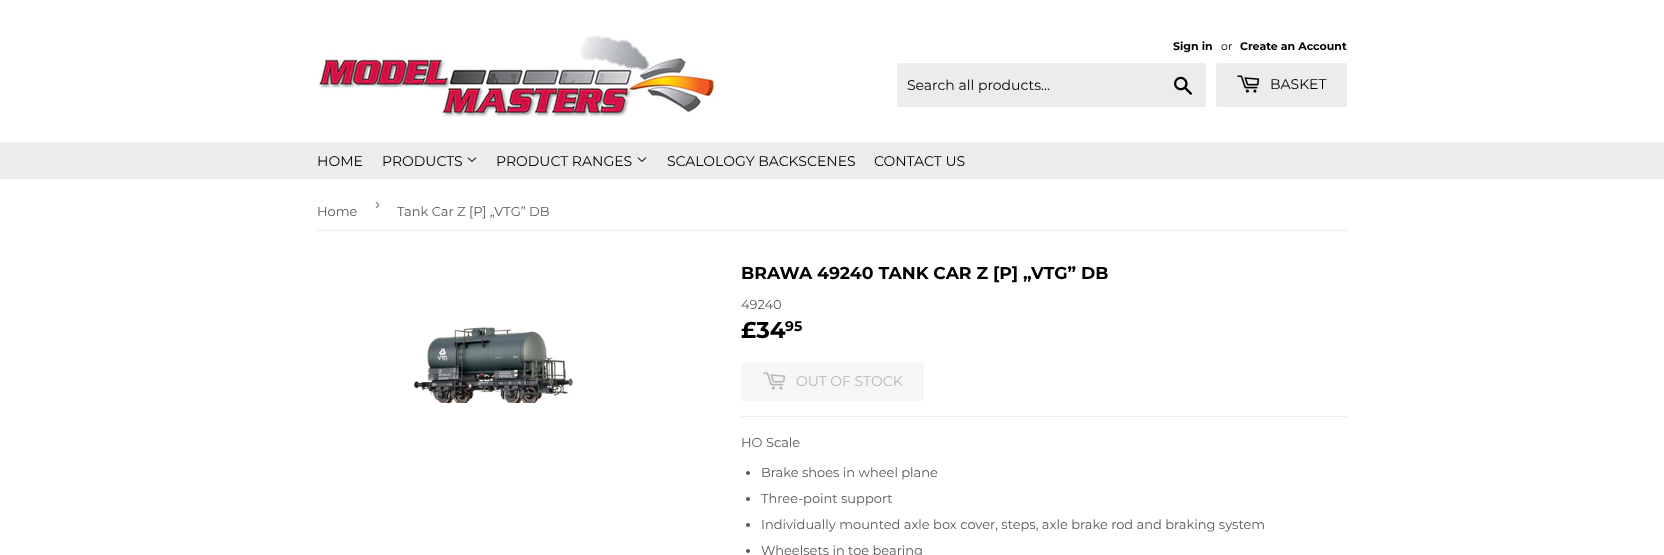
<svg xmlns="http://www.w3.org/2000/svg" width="1664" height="555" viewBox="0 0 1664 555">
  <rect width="100%" height="100%" fill="#ffffff"/>
  <image x="317" y="35" width="400" height="83" href="img1.png"/>
  <text x="1173" y="50" font-family="Montserrat" font-size="11" font-weight="bold" fill="#000000">Sign in</text>
  <text x="1221" y="50" font-family="Montserrat" font-size="11" fill="#000000">or</text>
  <text x="1240" y="50" font-family="Montserrat" font-size="11" font-weight="bold" fill="#000000">Create an Account</text>
  <rect x="897" y="63" width="309" height="44" rx="2" fill="#ececec"/>
  <text x="907" y="90" font-family="Montserrat" font-size="14" fill="#000000">Search all products...</text>
  <image x="1174" y="76" width="18" height="19" href="img2.png"/>
  <rect x="1216" y="63" width="131" height="44" rx="2" fill="#ececec"/>
  <image x="1237" y="75" width="23" height="18" href="img3.png"/>
  <text x="1270" y="89" font-family="Montserrat" font-size="14" fill="#000000">BASKET</text>
  <rect x="0" y="142" width="1664" height="37" fill="#ececec"/>
  <text x="317" y="166" font-family="Montserrat" font-size="14" fill="#000000">HOME</text>
  <text x="382" y="166" font-family="Montserrat" font-size="14" fill="#000000">PRODUCTS</text>
  <image x="467" y="157" width="10" height="5" href="img4.png"/>
  <text x="496" y="166" font-family="Montserrat" font-size="14" fill="#000000">PRODUCT RANGES</text>
  <image x="637" y="157" width="10" height="5" href="img4.png"/>
  <text x="667" y="166" font-family="Montserrat" font-size="14" fill="#000000">SCALOLOGY BACKSCENES</text>
  <text x="874" y="166" font-family="Montserrat" font-size="14" fill="#000000">CONTACT US</text>
  <rect x="317" y="230" width="1030" height="1" fill="#ececec"/>
  <text x="375" y="209" font-family="Liberation Sans" font-size="15" fill="#767676">›</text>
  <text x="317" y="216" font-family="Montserrat" font-size="13" fill="#585858">Home</text>
  <text x="397" y="216" font-family="Montserrat" font-size="13" fill="#585858">Tank Car Z [P] „VTG” DB</text>
  <image x="413" y="327" width="160" height="76" href="img5.png"/>
  <text x="741" y="279" font-family="Montserrat" font-size="17.3" font-weight="bold" fill="#000000">BRAWA 49240 TANK CAR Z [P] „VTG” DB</text>
  <text x="741" y="309" font-family="Montserrat" font-size="13" fill="#585858">49240</text>
  <text x="741" y="338" font-family="Montserrat" font-size="23" font-weight="bold" fill="#000000">£34</text>
  <text x="785" y="331" font-family="Montserrat" font-size="14" font-weight="bold" fill="#000000">95</text>
  <rect x="741" y="363" width="183" height="38" rx="2" fill="#f6f6f6"/>
  <image x="763" y="372" width="23" height="18" href="img6.png"/>
  <text x="796" y="386" font-family="Montserrat" font-size="14" fill="#b6b6b6">OUT OF STOCK</text>
  <rect x="741" y="416" width="606" height="1" fill="#ececec"/>
  <text x="741" y="447" font-family="Montserrat" font-size="13" fill="#585858">HO Scale</text>
  <circle cx="748" cy="473" r="2" fill="#585858"/>
  <text x="761" y="477" font-family="Montserrat" font-size="13" fill="#585858">Brake shoes in wheel plane</text>
  <circle cx="748" cy="499" r="2" fill="#585858"/>
  <text x="761" y="503" font-family="Montserrat" font-size="13" fill="#585858">Three-point support</text>
  <circle cx="748" cy="525" r="2" fill="#585858"/>
  <text x="761" y="529" font-family="Montserrat" font-size="13" fill="#585858">Individually mounted axle box cover, steps, axle brake rod and braking system</text>
  <circle cx="748" cy="551" r="2" fill="#585858"/>
  <text x="761" y="555" font-family="Montserrat" font-size="13" fill="#585858">Wheelsets in toe bearing</text>
</svg>
